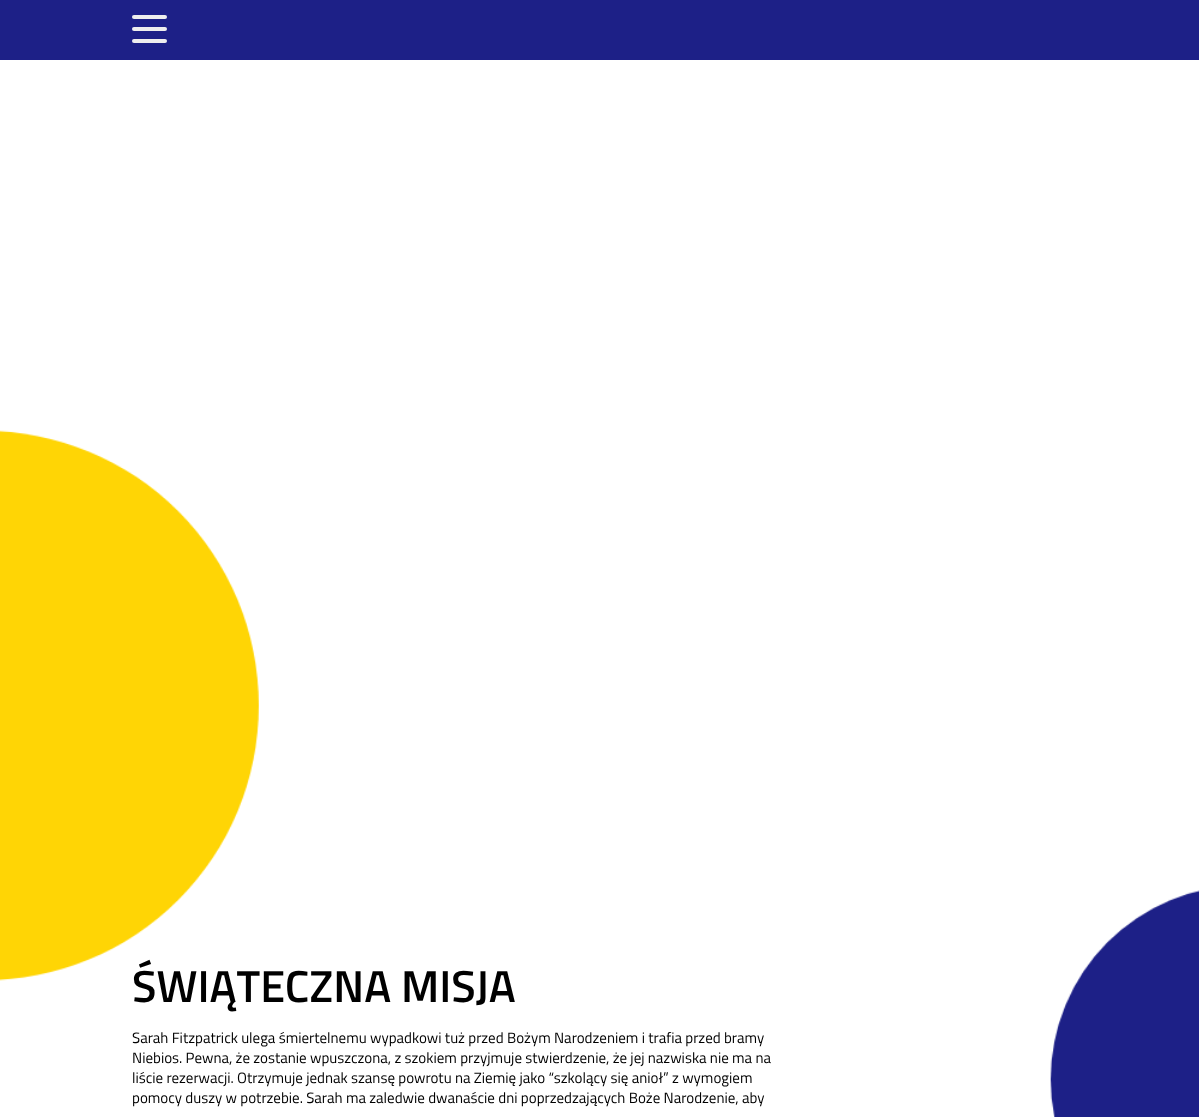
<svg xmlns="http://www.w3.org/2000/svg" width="1199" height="1117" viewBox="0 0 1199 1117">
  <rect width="100%" height="100%" fill="#ffffff"/>
  <image x="0" y="430" width="1199" height="687" href="img1.png"/>
  <rect x="0" y="0" width="1199" height="60" fill="#1d2087"/>
  <rect x="132" y="15" width="35" height="4" rx="2" fill="#eeeeee"/>
  <rect x="132" y="27" width="35" height="4" rx="2" fill="#eeeeee"/>
  <rect x="132" y="39" width="35" height="4" rx="2" fill="#eeeeee"/>
  <text x="132" y="1002" font-family="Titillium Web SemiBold" font-size="45" font-weight="600" fill="#000000">ŚWIĄTECZNA MISJA</text>
  <text x="132" y="1043" font-family="Titillium Web" font-size="15" fill="#000000">Sarah Fitzpatrick ulega śmiertelnemu wypadkowi tuż przed Bożym Narodzeniem i trafia przed bramy</text>
  <text x="132" y="1063" font-family="Titillium Web" font-size="15" fill="#000000">Niebios. Pewna, że zostanie wpuszczona, z szokiem przyjmuje stwierdzenie, że jej nazwiska nie ma na</text>
  <text x="132" y="1083" font-family="Titillium Web" font-size="15" fill="#000000">liście rezerwacji. Otrzymuje jednak szansę powrotu na Ziemię jako “szkolący się anioł” z wymogiem</text>
  <text x="132" y="1103" font-family="Titillium Web" font-size="15" fill="#000000">pomocy duszy w potrzebie. Sarah ma zaledwie dwanaście dni poprzedzających Boże Narodzenie, aby</text>
</svg>
